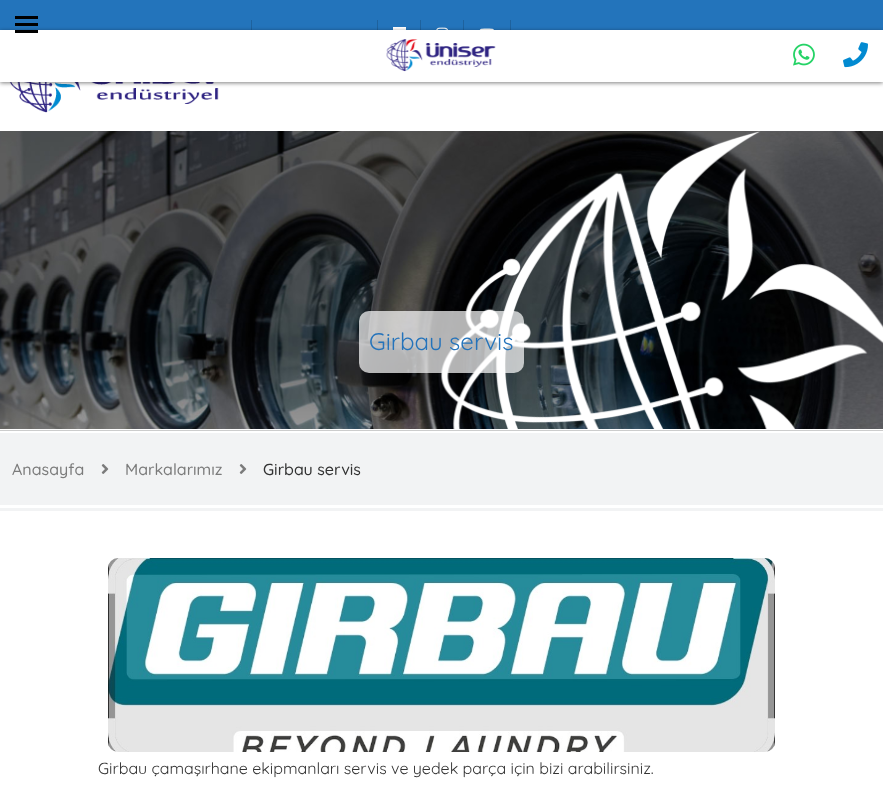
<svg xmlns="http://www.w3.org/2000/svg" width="883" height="802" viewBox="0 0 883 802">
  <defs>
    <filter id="blur1" x="-50%" y="-200%" width="200%" height="500%"><feGaussianBlur stdDeviation="2"/></filter>
  </defs>
  <rect width="100%" height="100%" fill="#ffffff"/>
  <rect x="0" y="0" width="883" height="30" fill="#2374bb"/>
  <rect x="251" y="20" width="1" height="10" fill="#1e629e"/>
  <rect x="377" y="20" width="1" height="10" fill="#1e629e"/>
  <rect x="420" y="20" width="1" height="10" fill="#1e629e"/>
  <rect x="393" y="27" width="13" height="3" fill="#ffffff"/>
  <rect x="463" y="20" width="1" height="10" fill="#1e629e"/>
  <image x="436" y="27" width="12" height="3" href="img1.png"/>
  <rect x="510" y="20" width="1" height="10" fill="#1e629e"/>
  <image x="479" y="28" width="15" height="2" href="img2.png"/>
  <image x="9" y="82" width="210" height="31" href="img6.png"/>
  <rect x="0" y="31" width="883" height="52" fill="#000000" fill-opacity="0.5" filter="url(#blur1)"/>
  <rect x="15" y="23" width="23" height="3" fill="#000000"/>
  <rect x="15" y="16" width="23" height="3" fill="#000000"/>
  <rect x="0" y="30" width="883" height="52" fill="#ffffff"/>
  <rect x="15" y="30" width="23" height="3" fill="#000000"/>
  <image x="386" y="39" width="110" height="33" href="img3.png"/>
  <image x="793" y="43" width="22" height="23" href="img4.png"/>
  <image x="843" y="42" width="25" height="26" href="img5.png"/>
  <rect x="0" y="430" width="883" height="1" fill="#cccccc"/>
  <image x="0" y="131" width="883" height="298" href="img7.png"/>
  <rect x="359" y="311" width="165" height="62" rx="10" fill="#ffffff" fill-opacity="0.7"/>
  <text x="369" y="350" font-family="Quicksand" font-size="24" fill="#2473bb">Girbau servis</text>
  <rect x="0" y="508" width="883" height="3" fill="#f2f3f4"/>
  <rect x="0" y="433" width="883" height="72" fill="#f2f3f4"/>
  <text x="12" y="475" font-family="Quicksand" font-size="16" font-weight="500" fill="#7b7b7b">Anasayfa</text>
  <image x="101" y="464" width="8" height="10" href="img8.png"/>
  <text x="125" y="475" font-family="Quicksand" font-size="16" font-weight="500" fill="#7b7b7b">Markalarımız</text>
  <image x="239" y="464" width="8" height="10" href="img8.png"/>
  <text x="263" y="475" font-family="Quicksand" font-size="16" font-weight="500" fill="#333333">Girbau servis</text>
  <image x="108" y="558" width="667" height="194" href="img9.png"/>
  <text x="98" y="774" font-family="Quicksand" font-size="16" fill="#333333">Girbau çamaşırhane ekipmanları servis ve yedek parça için bizi arabilirsiniz.</text>
</svg>
